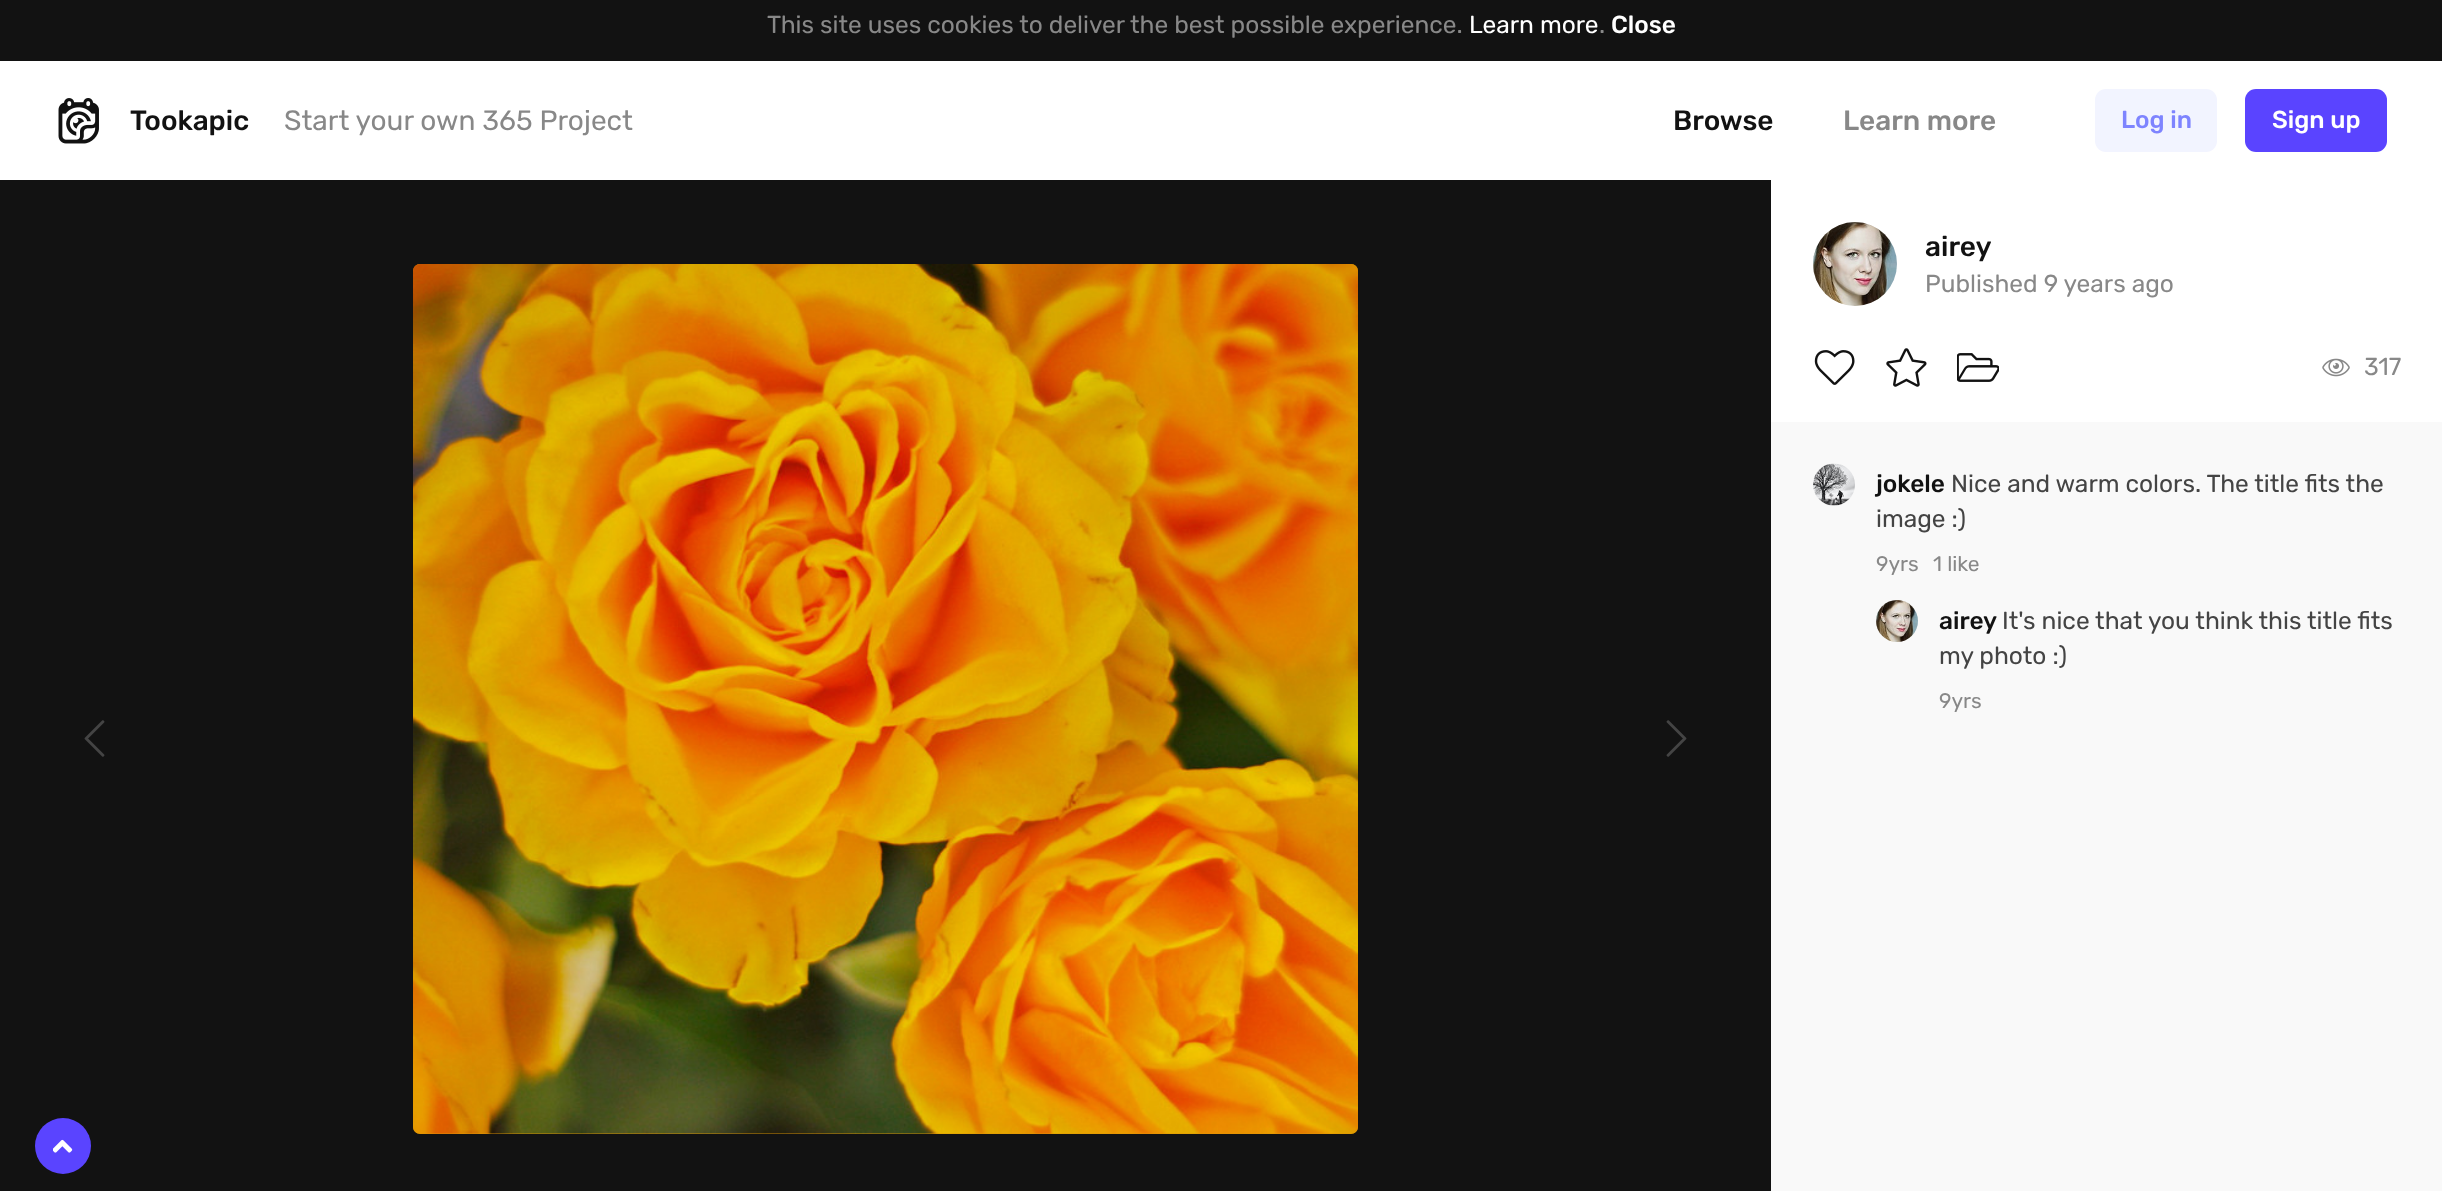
<svg xmlns="http://www.w3.org/2000/svg" width="2442" height="1191" viewBox="0 0 2442 1191">
  <rect width="100%" height="100%" fill="#ffffff"/>
  <rect x="0" y="0" width="2442" height="61" fill="#121212"/>
  <text x="767" y="33" font-family="Rubik" font-size="24.5" fill="#888888">This site uses cookies to deliver the best possible experience.</text>
  <text x="1469" y="33" font-family="Rubik" font-size="24.5" fill="#ffffff">Learn more</text>
  <text x="1599" y="33" font-family="Rubik" font-size="24.5" fill="#888888">.</text>
  <text x="1611" y="33" font-family="Rubik" font-size="24.5" font-weight="500" fill="#ffffff">Close</text>
  <image x="58" y="98" width="41" height="46" href="img1.png"/>
  <text x="130" y="130" font-family="Rubik" font-size="28" font-weight="500" fill="#121212">Tookapic</text>
  <text x="284" y="130" font-family="Rubik" font-size="28" fill="#888888">Start your own 365 Project</text>
  <text x="1673" y="130" font-family="Rubik" font-size="28" font-weight="500" fill="#121212">Browse</text>
  <text x="1843" y="130" font-family="Rubik" font-size="28" font-weight="500" fill="#888888">Learn more</text>
  <rect x="2095" y="89" width="122" height="63" rx="11" fill="#f2f4ff"/>
  <text x="2121" y="128" font-family="Rubik" font-size="24.5" font-weight="500" fill="#7e84ff">Log in</text>
  <rect x="2245" y="89" width="142" height="63" rx="11" fill="#5a44ff"/>
  <text x="2272" y="128" font-family="Rubik" font-size="24.5" font-weight="500" fill="#ffffff">Sign up</text>
  <rect x="0" y="180" width="1771" height="1011" fill="#121212"/>
  <image x="84" y="720" width="21" height="37" href="img2.png"/>
  <rect x="413" y="264" width="945" height="870" rx="7" fill="#df9505"/>
  <image x="413" y="264" width="945" height="870" href="img3.png"/>
  <image x="1666" y="720" width="21" height="37" href="img4.png"/>
  <circle cx="1855" cy="264" r="42" fill="#f5f5f5"/>
  <image x="1813" y="222" width="84" height="84" href="img5.png"/>
  <text x="1925" y="256" font-family="Rubik" font-size="28" font-weight="500" fill="#121212">airey</text>
  <text x="1925" y="292" font-family="Rubik" font-size="24.5" fill="#888888">Published 9 years ago</text>
  <image x="1814" y="350" width="41" height="35" href="img6.png"/>
  <image x="1886" y="348" width="41" height="39" href="img7.png"/>
  <image x="1957" y="353" width="42" height="29" href="img8.png"/>
  <image x="2322" y="358" width="28" height="19" href="img9.png"/>
  <text x="2364" y="375" font-family="Rubik" font-size="24.5" fill="#888888">317</text>
  <rect x="1771" y="422" width="671" height="769" fill="#f9f9f9"/>
  <circle cx="1834" cy="485" r="21" fill="#f5f5f5"/>
  <image x="1813" y="463" width="42" height="43" href="img10.png"/>
  <text x="1876" y="492" font-family="Rubik" font-size="24.5" font-weight="500" fill="#121212">jokele</text>
  <text x="1951" y="492" font-family="Rubik" font-size="24.5" fill="#444444">Nice and warm colors. The title fits the</text>
  <text x="1876" y="527" font-family="Rubik" font-size="24.5" fill="#444444">image :)</text>
  <text x="1876" y="571" font-family="Rubik" font-size="21" fill="#888888">9yrs</text>
  <text x="1933" y="571" font-family="Rubik" font-size="21" fill="#888888">1 like</text>
  <circle cx="1897" cy="621" r="21" fill="#f5f5f5"/>
  <image x="1876" y="600" width="42" height="42" href="img11.png"/>
  <text x="1939" y="629" font-family="Rubik" font-size="24.5" font-weight="500" fill="#121212">airey</text>
  <text x="2002" y="629" font-family="Rubik" font-size="24.5" fill="#444444">It's nice that you think this title fits</text>
  <text x="1939" y="664" font-family="Rubik" font-size="24.5" fill="#444444">my photo :)</text>
  <text x="1939" y="708" font-family="Rubik" font-size="21" fill="#888888">9yrs</text>
  <circle cx="63" cy="1146" r="28" fill="#5a44ff"/>
  <image x="53" y="1139" width="20" height="14" href="img12.png"/>
</svg>
